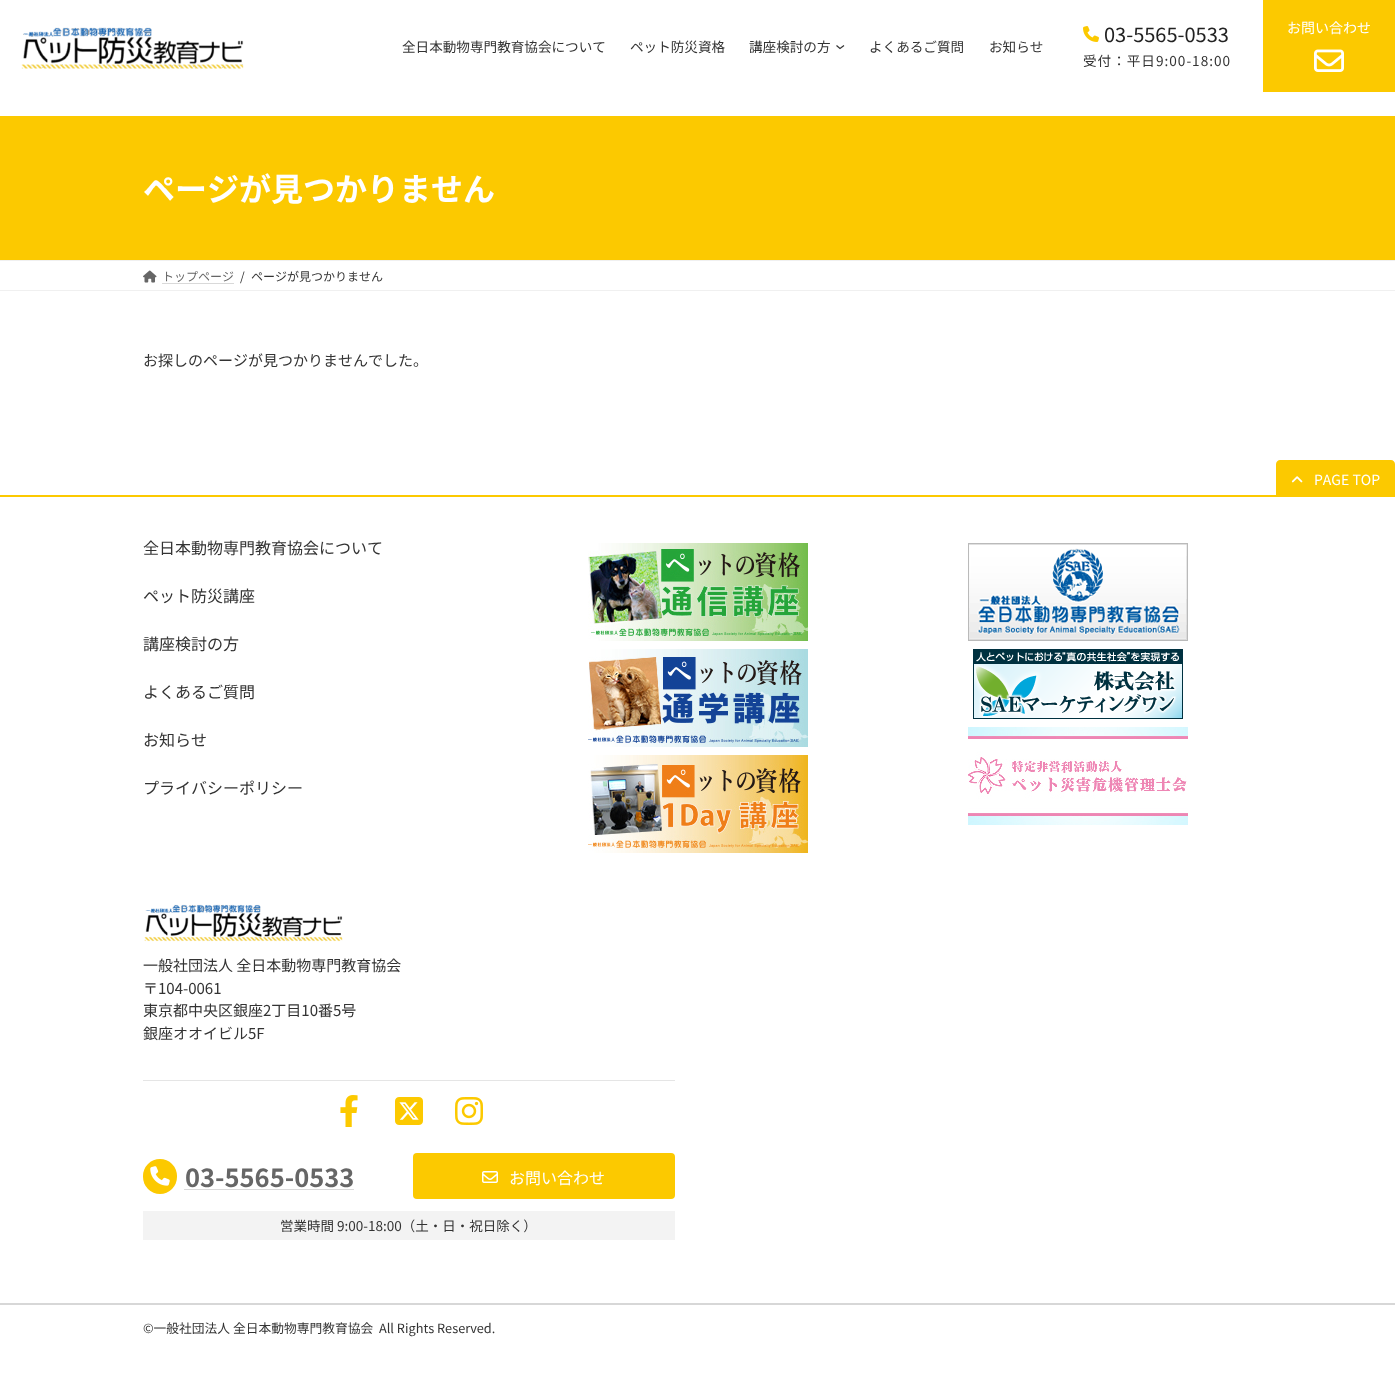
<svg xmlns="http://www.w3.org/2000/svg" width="1395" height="1395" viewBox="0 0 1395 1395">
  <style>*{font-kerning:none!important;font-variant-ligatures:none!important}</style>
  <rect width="100%" height="100%" fill="#ffffff"/>
  <image x="21" y="27" width="223" height="42" href="img1.png"/>
  <text x="402" y="52" font-family="Noto Sans JP" font-size="13.6" fill="#333333">全日本動物専門教育協会について</text>
  <text x="630" y="52" font-family="Noto Sans JP" font-size="13.6" fill="#333333">ペット防災資格</text>
  <text x="749" y="52" font-family="Noto Sans JP" font-size="13.6" fill="#333333">講座検討の方</text>
  <path d="M836.5 45.5L840 48.5L844 45.5" fill="none" stroke="#333333" stroke-width="1.2"/>
  <text x="869" y="52" font-family="Noto Sans JP" font-size="13.6" fill="#333333">よくあるご質問</text>
  <text x="989" y="52" font-family="Noto Sans JP" font-size="13.6" fill="#333333">お知らせ</text>
  <image x="1083" y="26" width="16" height="16" href="img2.png"/>
  <text x="1104" y="42" font-family="Noto Sans JP" font-size="20" fill="#222222">03-5565-0533</text>
  <text x="1083" y="66" font-family="Noto Sans JP" font-size="13.6" letter-spacing="1" fill="#333333">受付：平日9:00-18:00</text>
  <rect x="1263" y="0" width="132" height="92" fill="#fcc900"/>
  <text x="1287" y="33" font-family="Noto Sans JP" font-size="14" fill="#ffffff">お問い合わせ</text>
  <image x="1314" y="49" width="30" height="23" href="img3.png"/>
  <rect x="0" y="116" width="1395" height="144" fill="#fcc900"/>
  <text x="143" y="201" font-family="Noto Sans JP" font-size="32" font-weight="bold" fill="#ffffff">ページが見つかりません</text>
  <rect x="0" y="260" width="1395" height="1" fill="#f0f0f0"/>
  <rect x="0" y="290" width="1395" height="1" fill="#f0f0f0"/>
  <image x="143" y="270" width="14" height="13" href="img4.png"/>
  <text x="162" y="281" font-family="Noto Sans JP" font-size="12" fill="#666666">トップページ</text>
  <path d="M162.5 283.5H234.5" fill="none" stroke="#b3b3b3" stroke-dasharray="1 1"/>
  <text x="240" y="281" font-family="Noto Sans JP" font-size="12" fill="#333333">/</text>
  <text x="251" y="281" font-family="Noto Sans JP" font-size="12" fill="#333333">ページが見つかりません</text>
  <text x="143" y="366" font-family="Noto Sans JP" font-size="15" fill="#333333">お探しのページが見つかりませんでした。</text>
  <path d="M1280 460H1391C1393 460 1395 462 1395 464V495H1276V464C1276 462 1278 460 1280 460Z" fill="#fcc900"/>
  <image x="1291" y="476" width="12" height="7" href="img5.png"/>
  <text x="1314" y="485" font-family="Noto Sans JP" font-size="14" fill="#ffffff">PAGE TOP</text>
  <rect x="0" y="495" width="1395" height="2" fill="#fcc900"/>
  <text x="143" y="554" font-family="Noto Sans JP" font-size="16" fill="#333333">全日本動物専門教育協会について</text>
  <text x="143" y="602" font-family="Noto Sans JP" font-size="16" fill="#333333">ペット防災講座</text>
  <text x="143" y="650" font-family="Noto Sans JP" font-size="16" fill="#333333">講座検討の方</text>
  <text x="143" y="698" font-family="Noto Sans JP" font-size="16" fill="#333333">よくあるご質問</text>
  <text x="143" y="746" font-family="Noto Sans JP" font-size="16" fill="#333333">お知らせ</text>
  <text x="143" y="794" font-family="Noto Sans JP" font-size="16" fill="#333333">プライバシーポリシー</text>
  <image x="588" y="543" width="220" height="98" href="img6.png"/>
  <image x="588" y="649" width="220" height="98" href="img7.png"/>
  <image x="588" y="755" width="220" height="98" href="img8.png"/>
  <image x="968" y="543" width="220" height="98" href="img9.png"/>
  <image x="973" y="649" width="210" height="70" href="img10.png"/>
  <image x="968" y="727" width="220" height="98" href="img11.png"/>
  <image x="144" y="904" width="199" height="38" href="img12.png"/>
  <text x="143" y="971" font-family="Noto Sans JP" font-size="15" fill="#333333">一般社団法人 全日本動物専門教育協会</text>
  <text x="143" y="994" font-family="Noto Sans JP" font-size="15" fill="#333333">〒104-0061</text>
  <text x="143" y="1016" font-family="Noto Sans JP" font-size="15" fill="#333333">東京都中央区銀座2丁目10番5号</text>
  <text x="143" y="1039" font-family="Noto Sans JP" font-size="15" fill="#333333">銀座オオイビル5F</text>
  <rect x="143" y="1080" width="532" height="1" fill="#e5e5e5"/>
  <image x="340" y="1095" width="18" height="32" href="img13.png"/>
  <image x="395" y="1097" width="28" height="28" href="img14.png"/>
  <image x="455" y="1097" width="28" height="28" href="img15.png"/>
  <rect x="143" y="1159" width="34" height="35" rx="17" fill="#fcc900"/>
  <image x="150" y="1166" width="20" height="20" href="img16.png"/>
  <text x="185" y="1187" font-family="Noto Sans JP" font-size="25.5" font-weight="bold" fill="#666666">03-5565-0533</text>
  <path d="M184.5 1189.5H354" fill="none" stroke="#b3b3b3" stroke-dasharray="1 1"/>
  <rect x="413" y="1153" width="262" height="46" rx="4" fill="#fcc900"/>
  <image x="482" y="1171" width="16" height="12" href="img17.png"/>
  <text x="509" y="1184" font-family="Noto Sans JP" font-size="16" fill="#ffffff">お問い合わせ</text>
  <rect x="143" y="1211" width="532" height="29" fill="#f3f3f3"/>
  <text x="280" y="1231" font-family="Noto Sans JP" font-size="13.5" fill="#333333">営業時間 9:00-18:00（土・日・祝日除く）</text>
  <rect x="0" y="1303" width="1395" height="2" fill="#d7d7d7"/>
  <text x="143" y="1333" font-family="Noto Sans JP" font-size="12.75" fill="#333333">©一般社団法人 全日本動物専門教育協会</text>
  <text x="379" y="1333" font-family="Noto Sans JP" font-size="12.75" fill="#333333">All Rights Reserved.</text>
</svg>
